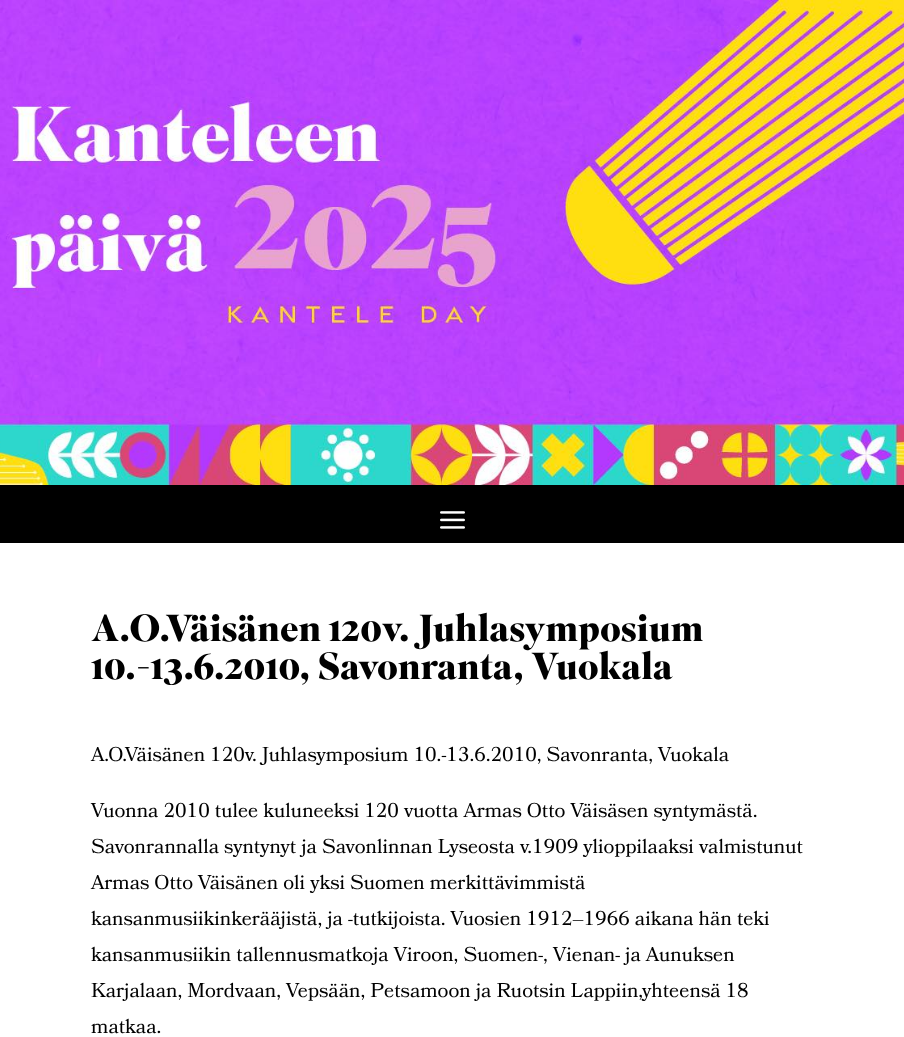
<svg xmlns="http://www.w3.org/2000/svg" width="904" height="1037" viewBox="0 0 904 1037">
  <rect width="100%" height="100%" fill="#ffffff"/>
  <image x="0" y="0" width="904" height="485" href="img1.png"/>
  <rect x="0" y="485" width="904" height="58" fill="#000000"/>
  <image x="440" y="511" width="25" height="18" href="img2.png"/>
  <text x="91" y="641" font-family="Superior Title" font-size="37.5" font-weight="bold" fill="#000000">A.O.Väisänen 120v. Juhlasymposium</text>
  <text x="91" y="679" font-family="Superior Title" font-size="37.5" font-weight="bold" fill="#000000">10.-13.6.2010, Savonranta, Vuokala</text>
  <text x="91" y="761" font-family="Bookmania" font-size="20" fill="#000000">A.O.Väisänen 120v. Juhlasymposium 10.-13.6.2010, Savonranta, Vuokala</text>
  <text x="91" y="817" font-family="Bookmania" font-size="20" fill="#000000">Vuonna 2010 tulee kuluneeksi 120 vuotta Armas Otto Väisäsen syntymästä.</text>
  <text x="91" y="853" font-family="Bookmania" font-size="20" fill="#000000">Savonrannalla syntynyt ja Savonlinnan Lyseosta v.1909 ylioppilaaksi valmistunut</text>
  <text x="91" y="889" font-family="Bookmania" font-size="20" fill="#000000">Armas Otto Väisänen oli yksi Suomen merkittävimmistä</text>
  <text x="91" y="925" font-family="Bookmania" font-size="20" fill="#000000">kansanmusiikinkerääjistä, ja -tutkijoista. Vuosien 1912–1966 aikana hän teki</text>
  <text x="91" y="961" font-family="Bookmania" font-size="20" fill="#000000">kansanmusiikin tallennusmatkoja Viroon, Suomen-, Vienan- ja Aunuksen</text>
  <text x="91" y="997" font-family="Bookmania" font-size="20" fill="#000000">Karjalaan, Mordvaan, Vepsään, Petsamoon ja Ruotsin Lappiin,yhteensä 18</text>
  <text x="91" y="1033" font-family="Bookmania" font-size="20" fill="#000000">matkaa.</text>
</svg>
